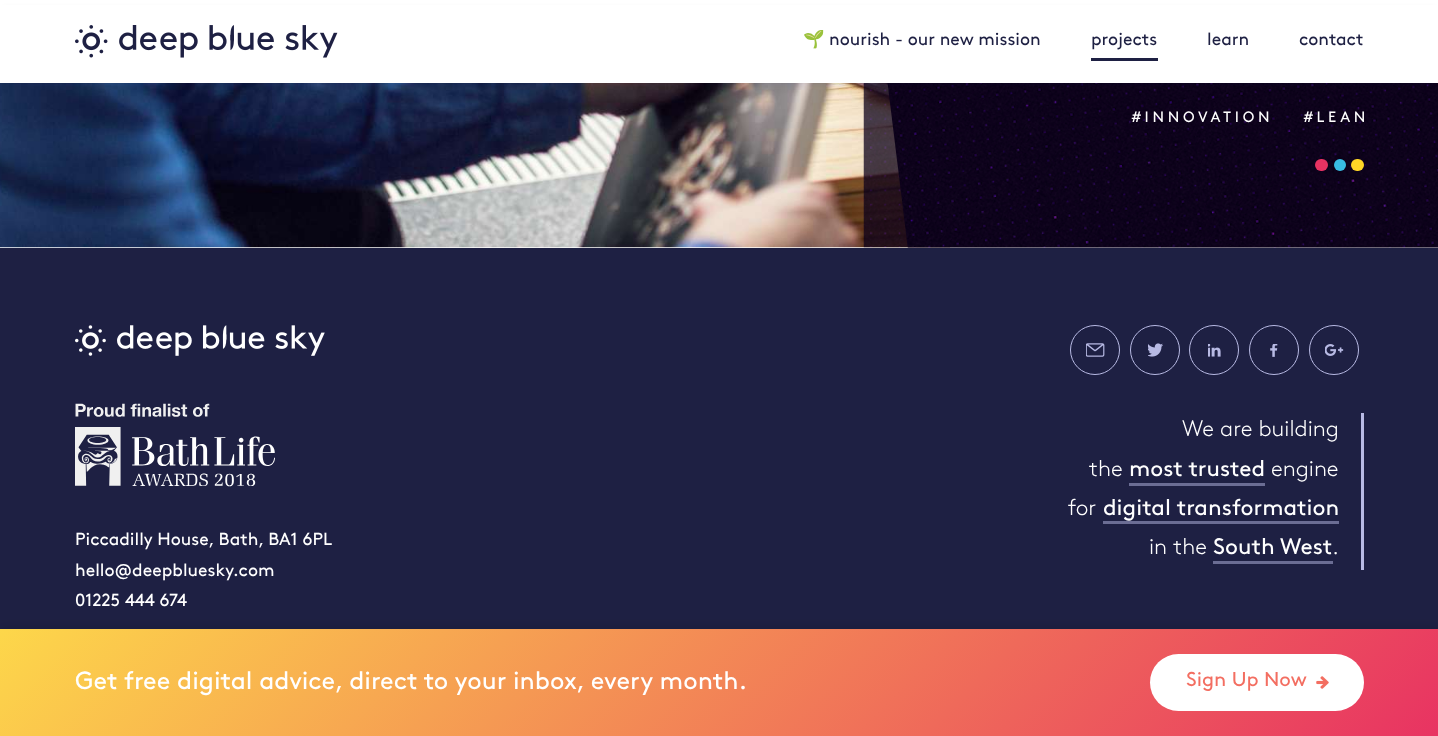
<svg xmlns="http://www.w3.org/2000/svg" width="1438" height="736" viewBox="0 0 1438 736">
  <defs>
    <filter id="blur1" x="-50%" y="-200%" width="200%" height="500%"><feGaussianBlur stdDeviation="3"/></filter>
    <filter id="blur2" x="-50%" y="-200%" width="200%" height="500%"><feGaussianBlur stdDeviation="4"/></filter>
    <linearGradient id="g1" gradientUnits="userSpaceOnUse" x1="333" y1="296" x2="1106" y2="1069"><stop offset="0" stop-color="#fdd74a"/><stop offset="1" stop-color="#e83362"/></linearGradient>
  </defs>
  <rect width="100%" height="100%" fill="#ffffff"/>
  <image x="0" y="83" width="950" height="165" href="img2.png"/>
  <image x="863" y="83" width="575" height="165" href="img3.png"/>
  <image x="887" y="83" width="551" height="165" href="img4.png"/>
  <rect x="4" y="9" width="1431" height="75" fill="#1e2043" fill-opacity="0.1" filter="url(#blur1)"/>
  <rect x="0" y="5" width="1438" height="78" fill="#ffffff"/>
  <image x="75" y="25" width="263" height="33" href="img1.png"/>
  <text x="803" y="45" font-family="Noto Color Emoji" font-size="17.5" fill="#1e2043">🌱</text>
  <text x="829" y="45" font-family="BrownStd" font-size="17.5" fill="#1e2043">nourish - our new mission</text>
  <text x="1091" y="45" font-family="BrownStd" font-size="17.5" fill="#1e2043">projects</text>
  <rect x="1091" y="58" width="67" height="3" fill="#1e2043"/>
  <text x="1207" y="45" font-family="BrownStd" font-size="17.5" fill="#1e2043">learn</text>
  <text x="1299" y="45" font-family="BrownStd" font-size="17.5" fill="#1e2043">contact</text>
  <text x="1132" y="122" font-family="BrownStd" font-size="15" letter-spacing="3.75" fill="#ffffff">#INNOVATION</text>
  <text x="1304" y="122" font-family="BrownStd" font-size="15" letter-spacing="3.75" fill="#ffffff">#LEAN</text>
  <rect x="1315" y="159" width="13" height="12" rx="6" fill="#e83362"/>
  <circle cx="1340" cy="165" r="6" fill="#38bde3"/>
  <rect x="1351" y="159" width="13" height="12" rx="6" fill="#ffd626"/>
  <rect x="0" y="248" width="1438" height="381" fill="#1e2043"/>
  <circle cx="1095" cy="350" r="24.5" fill="none" stroke="#b8bae4"/>
  <image x="1086" y="343" width="19" height="14" href="img5.png"/>
  <circle cx="1155" cy="350" r="24.5" fill="none" stroke="#b8bae4"/>
  <image x="1148" y="343" width="15" height="14" href="img6.png"/>
  <circle cx="1214" cy="350" r="24.5" fill="none" stroke="#b8bae4"/>
  <image x="1208" y="344" width="13" height="13" href="img7.png"/>
  <circle cx="1274" cy="350" r="24.5" fill="none" stroke="#b8bae4"/>
  <image x="1270" y="344" width="8" height="13" href="img8.png"/>
  <circle cx="1334" cy="350" r="24.5" fill="none" stroke="#b8bae4"/>
  <image x="1325" y="344" width="19" height="12" href="img9.png"/>
  <rect x="1361" y="413" width="3" height="157" fill="#b8bae4"/>
  <text x="1182" y="436" font-family="BrownStd" font-size="22.5" font-weight="300" fill="#ffffff">We are building</text>
  <text x="1089" y="476" font-family="BrownStd" font-size="22.5" font-weight="300" fill="#ffffff">the</text>
  <text x="1129" y="476" font-family="BrownStd" font-size="22.5" fill="#ffffff">most trusted</text>
  <rect x="1129" y="483" width="136" height="3" fill="#6b6d94"/>
  <text x="1271" y="476" font-family="BrownStd" font-size="22.5" font-weight="300" fill="#ffffff">engine</text>
  <text x="1068" y="515" font-family="BrownStd" font-size="22.5" font-weight="300" fill="#ffffff">for</text>
  <text x="1103" y="515" font-family="BrownStd" font-size="22.5" fill="#ffffff">digital transformation</text>
  <rect x="1103" y="521" width="236" height="3" fill="#6b6d94"/>
  <text x="1149" y="554" font-family="BrownStd" font-size="22.5" font-weight="300" fill="#ffffff">in the</text>
  <text x="1213" y="554" font-family="BrownStd" font-size="22.5" fill="#ffffff">South West</text>
  <rect x="1213" y="561" width="120" height="3" fill="#6b6d94"/>
  <text x="1332" y="554" font-family="BrownStd" font-size="22.5" font-weight="300" fill="#ffffff">.</text>
  <image x="75" y="325" width="250" height="31" href="img10.png"/>
  <image x="75" y="403" width="200" height="84" href="img11.png"/>
  <text x="75" y="545" font-family="BrownStd" font-size="17.5" fill="#ffffff">Piccadilly House, Bath, BA1 6PL</text>
  <text x="75" y="576" font-family="BrownStd" font-size="17.5" fill="#ffffff">hello@deepbluesky.com</text>
  <text x="75" y="606" font-family="BrownStd" font-size="17.5" fill="#ffffff">01225 444 674</text>
  <rect x="0" y="626" width="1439" height="108" fill="#000000" fill-opacity="0.1" filter="url(#blur2)"/>
  <rect x="0" y="629" width="1438" height="107" fill="url(#g1)"/>
  <text x="75" y="689" font-family="BrownStd" font-size="25" fill="#ffffff">Get free digital advice, direct to your inbox, every month.</text>
  <rect x="1150" y="654" width="214" height="57" rx="28.5" fill="#ffffff"/>
  <text x="1186" y="686" font-family="BrownStd" font-size="20" fill="#f36e61">Sign Up Now</text>
  <image x="1316" y="676" width="13" height="13" href="img12.png"/>
</svg>
